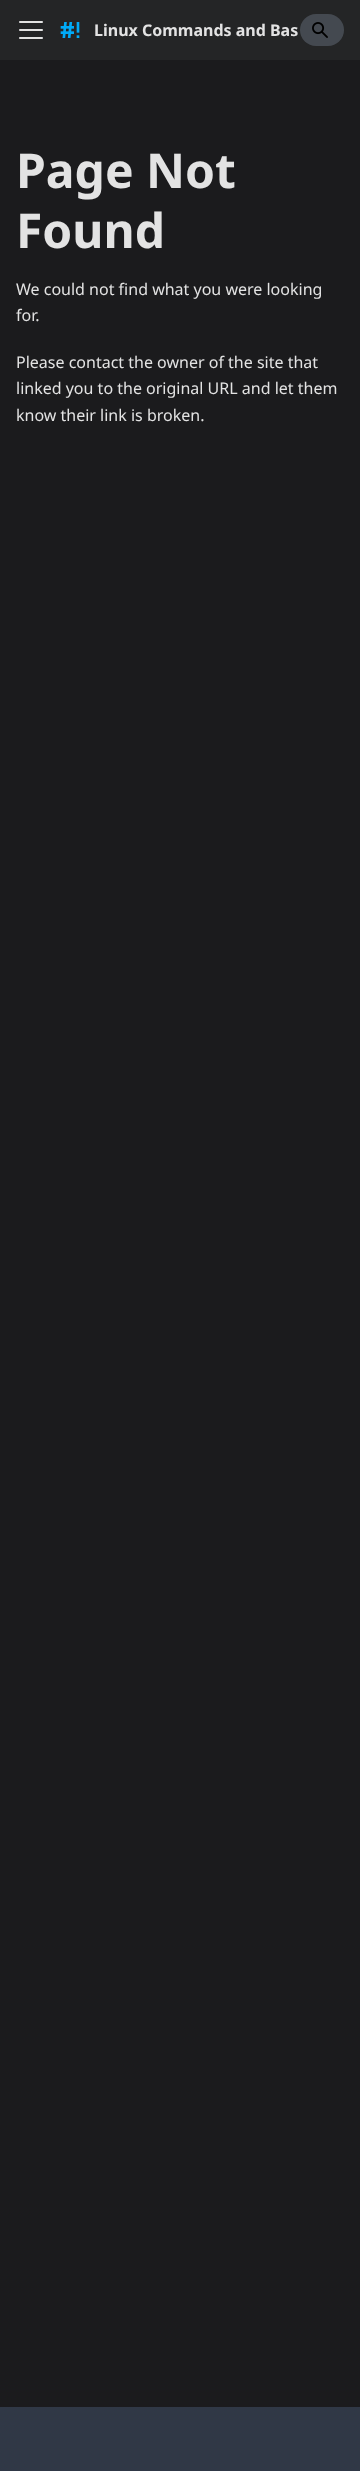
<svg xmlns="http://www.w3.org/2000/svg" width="360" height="2471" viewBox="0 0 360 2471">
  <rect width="100%" height="100%" fill="#1b1b1d"/>
  <rect x="0" y="0" width="360" height="60" fill="#242526"/>
  <image x="19" y="21" width="24" height="18" href="img1.png"/>
  <image x="60" y="22" width="20" height="16" href="img2.png"/>
  <text x="94" y="36" font-family="Noto Sans" font-size="16" font-weight="bold" fill="#e3e3e3">Linux Commands and Bas</text>
  <rect x="300" y="14" width="44" height="32" rx="16" fill="#444950"/>
  <image x="312" y="22" width="16" height="16" href="img3.png"/>
  <text x="16" y="188" font-family="Noto Sans" font-size="48" font-weight="bold" fill="#e3e3e3">Page Not</text>
  <text x="16" y="248" font-family="Noto Sans" font-size="48" font-weight="bold" fill="#e3e3e3">Found</text>
  <text x="16" y="295" font-family="Noto Sans" font-size="16" fill="#e3e3e3">We could not find what you were looking</text>
  <text x="16" y="321" font-family="Noto Sans" font-size="16" fill="#e3e3e3">for.</text>
  <text x="16" y="368" font-family="Noto Sans" font-size="16" fill="#e3e3e3">Please contact the owner of the site that</text>
  <text x="16" y="394" font-family="Noto Sans" font-size="16" fill="#e3e3e3">linked you to the original URL and let them</text>
  <text x="16" y="421" font-family="Noto Sans" font-size="16" fill="#e3e3e3">know their link is broken.</text>
  <rect x="0" y="2407" width="360" height="64" fill="#303846"/>
</svg>
